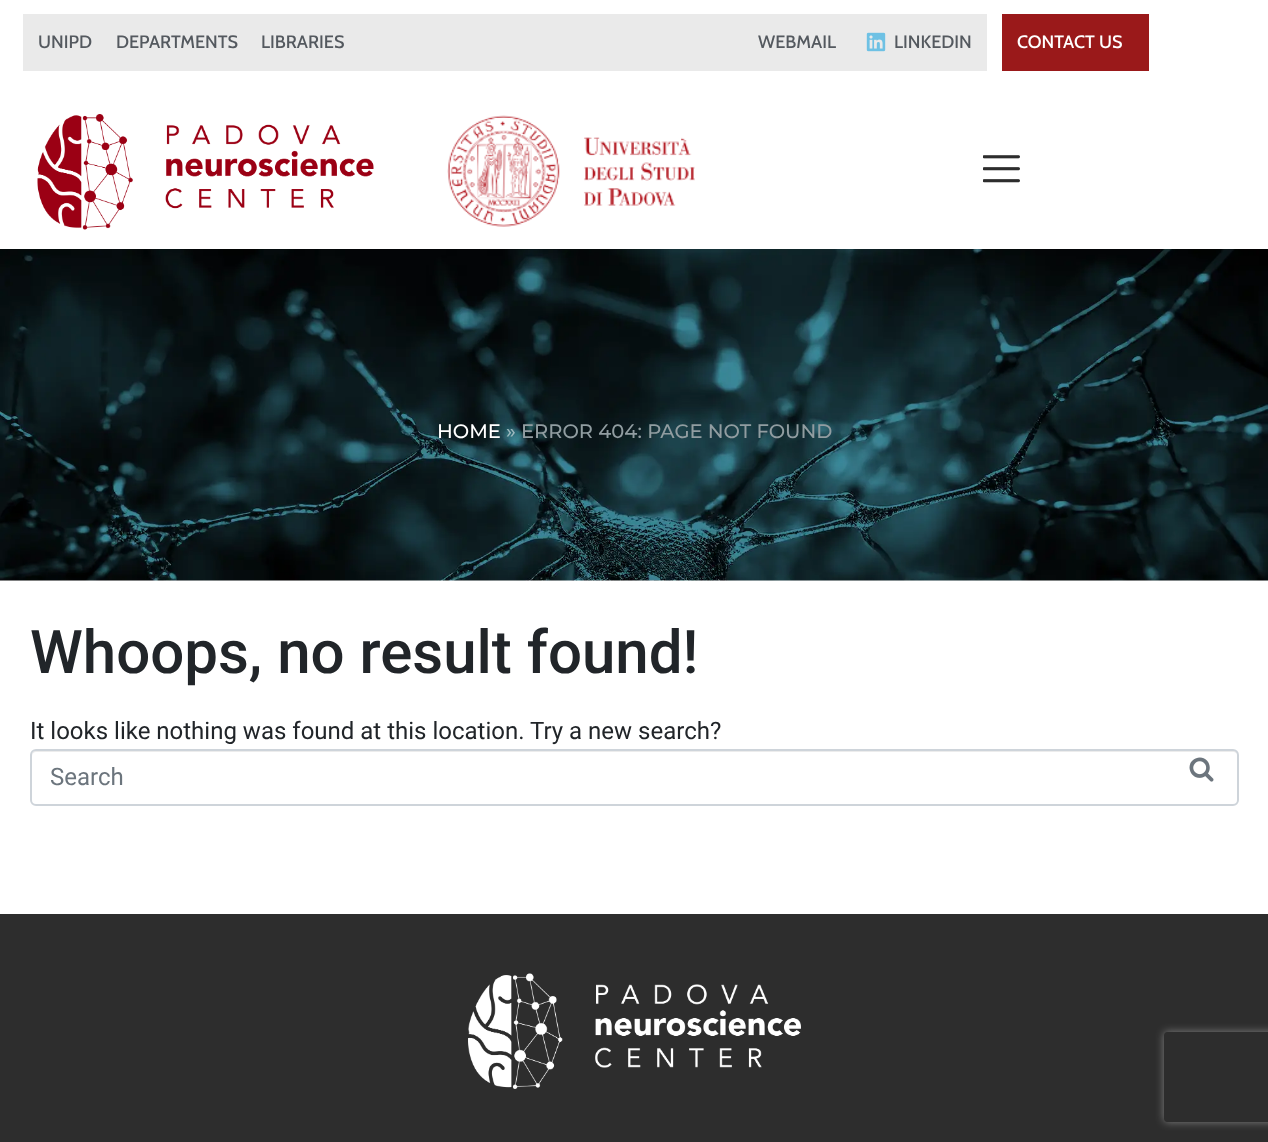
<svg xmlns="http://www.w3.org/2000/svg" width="1268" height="1142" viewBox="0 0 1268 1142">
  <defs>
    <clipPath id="clip1"><path d="M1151 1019H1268V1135H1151ZM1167 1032H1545C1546.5 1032 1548 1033.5 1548 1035V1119C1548 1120.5 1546.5 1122 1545 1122H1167C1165.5 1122 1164 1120.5 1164 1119V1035C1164 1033.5 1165.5 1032 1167 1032Z" clip-rule="evenodd"/></clipPath>
    <filter id="blur1" x="-50%" y="-200%" width="200%" height="500%"><feGaussianBlur stdDeviation="4"/></filter>
  </defs>
  <rect width="100%" height="100%" fill="#ffffff"/>
  <rect x="23" y="14" width="964" height="57" fill="#eaeaea"/>
  <text x="38" y="48" font-family="Cabin" font-size="18" font-weight="500" fill="#54595f">UNIPD</text>
  <text x="116" y="48" font-family="Cabin" font-size="18" font-weight="500" fill="#54595f">DEPARTMENTS</text>
  <text x="261" y="48" font-family="Cabin" font-size="18" font-weight="500" fill="#54595f">LIBRARIES</text>
  <text x="758" y="48" font-family="Cabin" font-size="18" font-weight="500" fill="#54595f">WEBMAIL</text>
  <image x="866" y="32" width="20" height="20" href="img1.png"/>
  <text x="894" y="48" font-family="Cabin" font-size="18" font-weight="500" fill="#54595f">LINKEDIN</text>
  <rect x="1002" y="14" width="147" height="57" fill="#9a191a"/>
  <text x="1017" y="48" font-family="Cabin" font-size="18" font-weight="500" fill="#ffffff">CONTACT US</text>
  <image x="37" y="114" width="337" height="116" href="img2.png"/>
  <image x="447" y="115" width="248" height="112" href="img3.png"/>
  <image x="983" y="155" width="37" height="28" href="img4.png"/>
  <image x="0" y="249" width="1268" height="332" href="img5.png"/>
  <text x="437" y="438" font-family="Montserrat" font-size="19.5" font-weight="500" fill="#ffffff">HOME</text>
  <text x="506" y="438" font-family="Montserrat" font-size="19.5" font-weight="500" fill="#9db9bf">»</text>
  <text x="521" y="438" font-family="Montserrat" font-size="19.5" font-weight="500" fill="#919da1">ERROR 404: PAGE NOT FOUND</text>
  <text x="30" y="673" font-family="Roboto" font-size="60" font-weight="500" fill="#212529">Whoops, no result found!</text>
  <text x="30" y="739" font-family="Roboto" font-size="24" fill="#212529">It looks like nothing was found at this location. Try a new search?</text>
  <path d="M36 752H1233C1235 752 1238 754 1238 756C1238 753 1236 750 1233 750H37C34 750 32 753 32 756C32 754 34 752 36 752Z" fill="#ececec"/>
  <rect x="31" y="750" width="1207" height="55" rx="5" fill="none" stroke="#ced4da" stroke-width="2"/>
  <text x="50" y="785" font-family="Roboto" font-size="24" fill="#6c757d">Search</text>
  <image x="1189" y="757" width="25" height="25" href="img6.png"/>
  <rect x="0" y="914" width="1268" height="228" fill="#2d2d2d"/>
  <image x="468" y="973" width="333" height="116" href="img7.png"/>
  <g clip-path="url(#clip1)">
    <rect x="1164" y="1032" width="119" height="90" rx="3" fill="#808080" filter="url(#blur1)"/>
  </g>
</svg>
